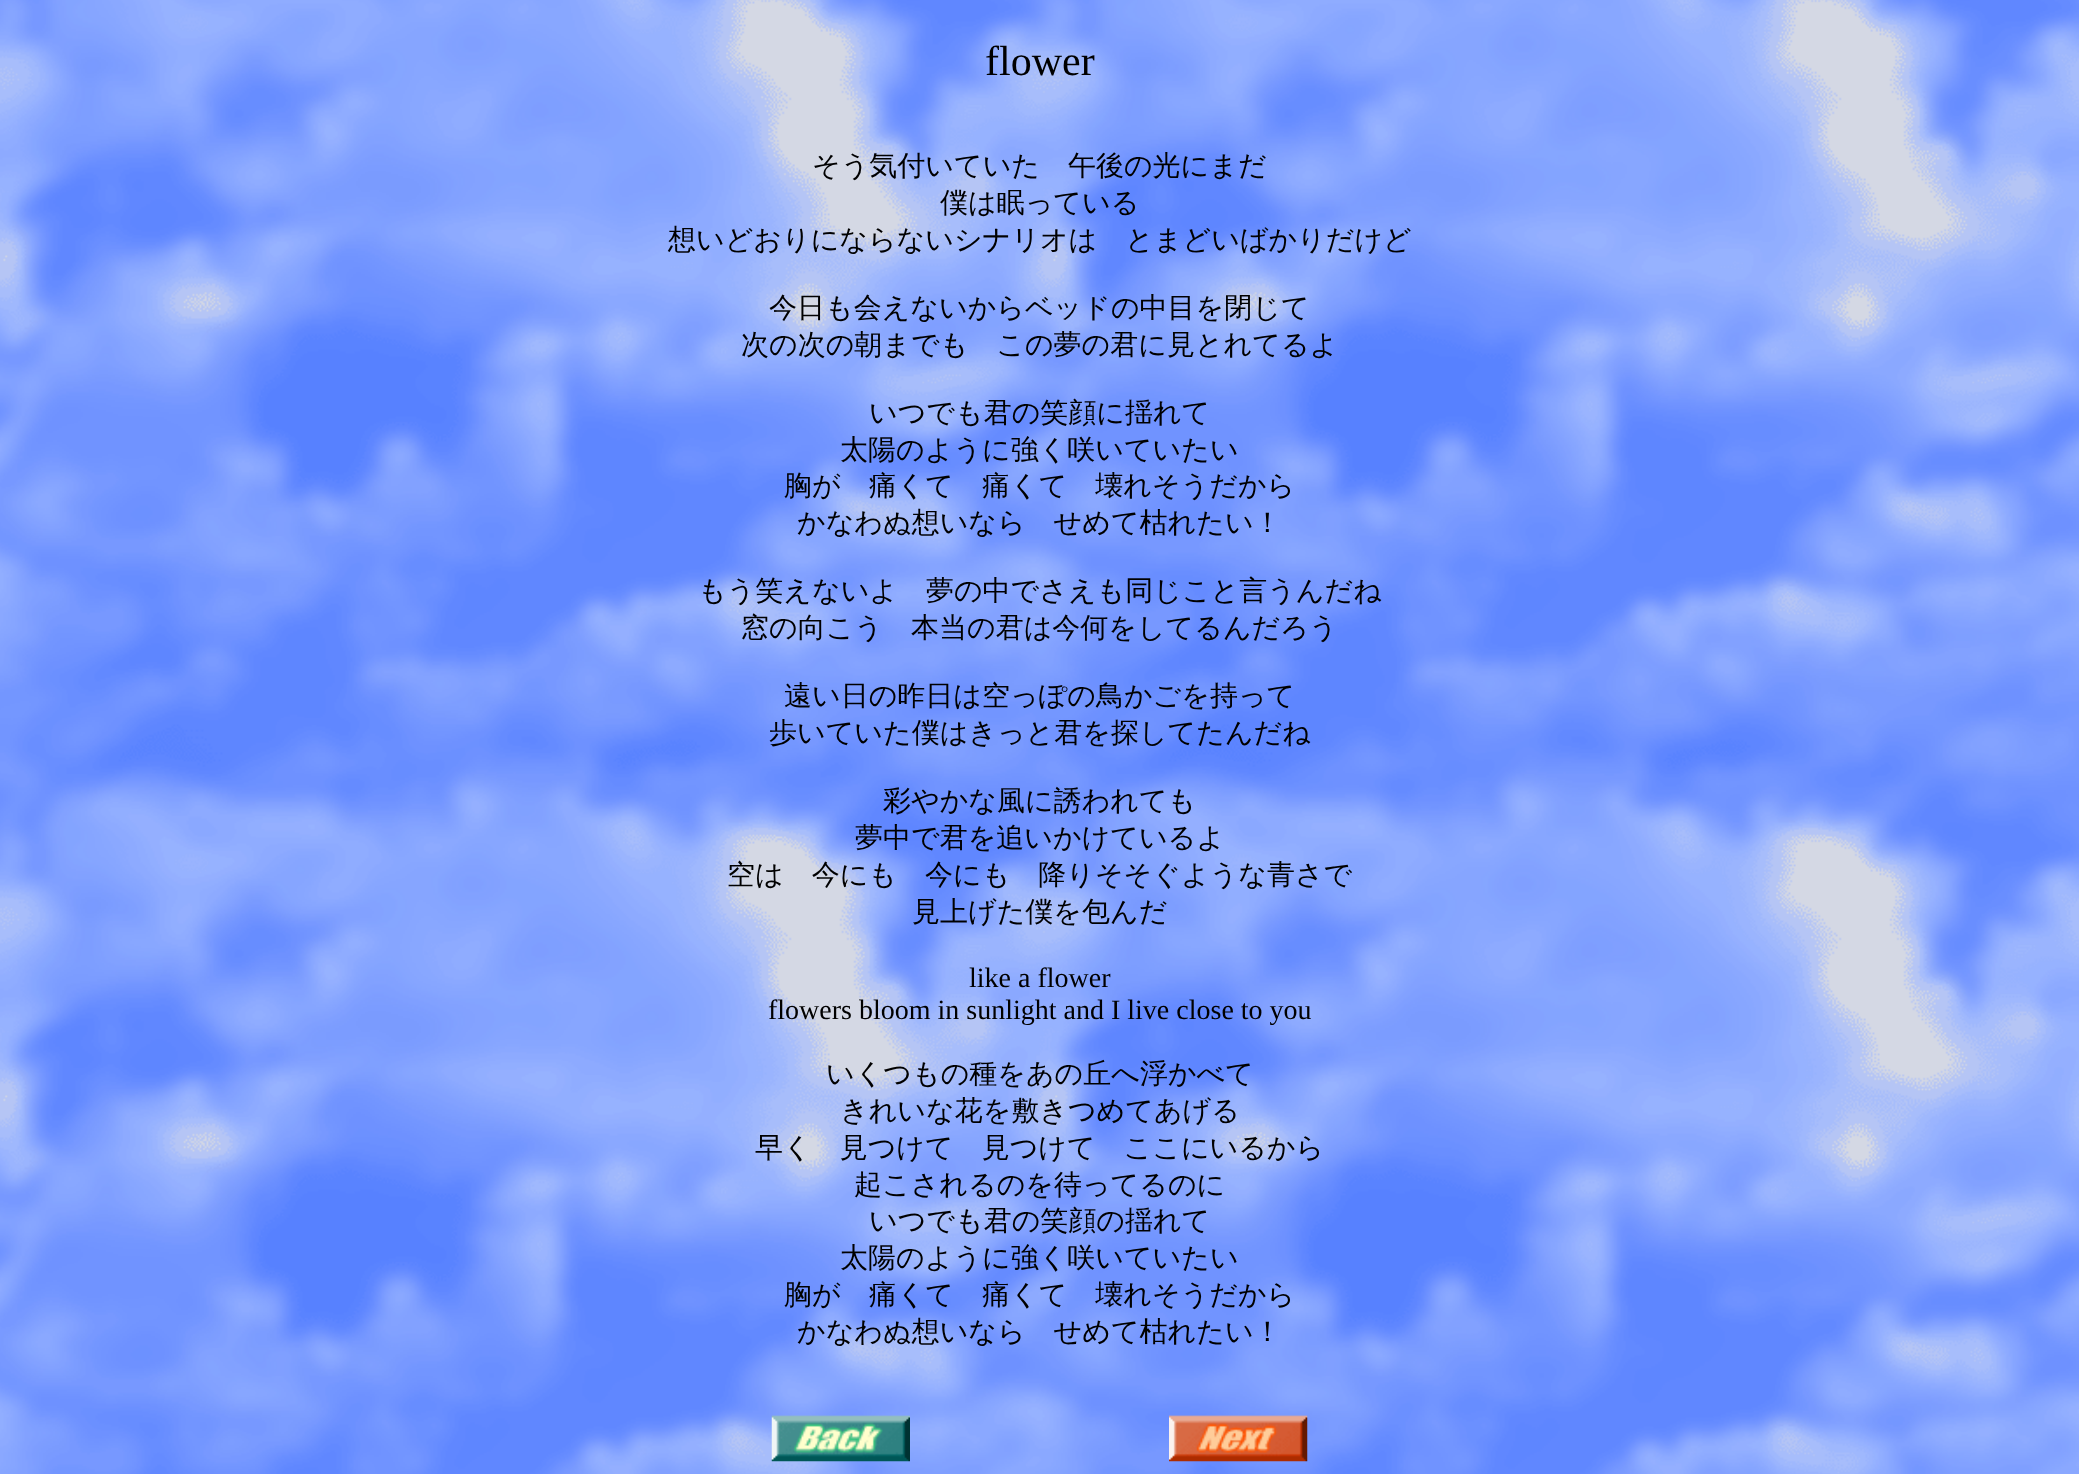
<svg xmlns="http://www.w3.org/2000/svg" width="2079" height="1474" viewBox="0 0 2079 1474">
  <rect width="100%" height="100%" fill="#ffffff"/>
  <image x="0" y="0" width="2079" height="1474" href="img1.png"/>
  <text x="985" y="75" font-family="Liberation Serif" font-size="42" fill="#000000">flower</text>
  <text x="812" y="175" font-family="WenQuanYi Zen Hei" font-size="28" font-weight="500" fill="#000000">そう気付いていた　午後の光にまだ</text>
  <text x="940" y="212" font-family="WenQuanYi Zen Hei" font-size="28" font-weight="500" fill="#000000">僕は眠っている</text>
  <text x="668" y="249" font-family="WenQuanYi Zen Hei" font-size="28" font-weight="500" fill="#000000">想いどおりにならないシナリオは　とまどいばかりだけど</text>
  <text x="769" y="317" font-family="WenQuanYi Zen Hei" font-size="28" font-weight="500" fill="#000000">今日も会えないからベッドの中目を閉じて</text>
  <text x="741" y="354" font-family="WenQuanYi Zen Hei" font-size="28" font-weight="500" fill="#000000">次の次の朝までも　この夢の君に見とれてるよ</text>
  <text x="869" y="422" font-family="WenQuanYi Zen Hei" font-size="28" font-weight="500" fill="#000000">いつでも君の笑顔に揺れて</text>
  <text x="840" y="459" font-family="WenQuanYi Zen Hei" font-size="28" font-weight="500" fill="#000000">太陽のように強く咲いていたい</text>
  <text x="784" y="495" font-family="WenQuanYi Zen Hei" font-size="28" font-weight="500" fill="#000000">胸が　痛くて　痛くて　壊れそうだから</text>
  <text x="797" y="532" font-family="WenQuanYi Zen Hei" font-size="28" font-weight="500" fill="#000000">かなわぬ想いなら　せめて枯れたい！</text>
  <text x="698" y="600" font-family="WenQuanYi Zen Hei" font-size="28" font-weight="500" fill="#000000">もう笑えないよ　夢の中でさえも同じこと言うんだね</text>
  <text x="741" y="637" font-family="WenQuanYi Zen Hei" font-size="28" font-weight="500" fill="#000000">窓の向こう　本当の君は今何をしてるんだろう</text>
  <text x="784" y="705" font-family="WenQuanYi Zen Hei" font-size="28" font-weight="500" fill="#000000">遠い日の昨日は空っぽの鳥かごを持って</text>
  <text x="769" y="742" font-family="WenQuanYi Zen Hei" font-size="28" font-weight="500" fill="#000000">歩いていた僕はきっと君を探してたんだね</text>
  <text x="883" y="810" font-family="WenQuanYi Zen Hei" font-size="28" font-weight="500" fill="#000000">彩やかな風に誘われても</text>
  <text x="855" y="847" font-family="WenQuanYi Zen Hei" font-size="28" font-weight="500" fill="#000000">夢中で君を追いかけているよ</text>
  <text x="727" y="884" font-family="WenQuanYi Zen Hei" font-size="28" font-weight="500" fill="#000000">空は　今にも　今にも　降りそそぐような青さで</text>
  <text x="912" y="921" font-family="WenQuanYi Zen Hei" font-size="28" font-weight="500" fill="#000000">見上げた僕を包んだ</text>
  <text x="969" y="987" font-family="Liberation Serif" font-size="28" fill="#000000">like a flower</text>
  <text x="768" y="1019" font-family="Liberation Serif" font-size="28" fill="#000000">flowers bloom in sunlight and I live close to you</text>
  <text x="826" y="1083" font-family="WenQuanYi Zen Hei" font-size="28" font-weight="500" fill="#000000">いくつもの種をあの丘へ浮かべて</text>
  <text x="840" y="1120" font-family="WenQuanYi Zen Hei" font-size="28" font-weight="500" fill="#000000">きれいな花を敷きつめてあげる</text>
  <text x="755" y="1157" font-family="WenQuanYi Zen Hei" font-size="28" font-weight="500" fill="#000000">早く　見つけて　見つけて　ここにいるから</text>
  <text x="854" y="1194" font-family="WenQuanYi Zen Hei" font-size="28" font-weight="500" fill="#000000">起こされるのを待ってるのに</text>
  <text x="869" y="1230" font-family="WenQuanYi Zen Hei" font-size="28" font-weight="500" fill="#000000">いつでも君の笑顔の揺れて</text>
  <text x="840" y="1267" font-family="WenQuanYi Zen Hei" font-size="28" font-weight="500" fill="#000000">太陽のように強く咲いていたい</text>
  <text x="784" y="1304" font-family="WenQuanYi Zen Hei" font-size="28" font-weight="500" fill="#000000">胸が　痛くて　痛くて　壊れそうだから</text>
  <text x="797" y="1341" font-family="WenQuanYi Zen Hei" font-size="28" font-weight="500" fill="#000000">かなわぬ想いなら　せめて枯れたい！</text>
  <image x="771" y="1415" width="139" height="47" href="img2.png"/>
  <image x="1169" y="1415" width="139" height="47" href="img3.png"/>
</svg>
